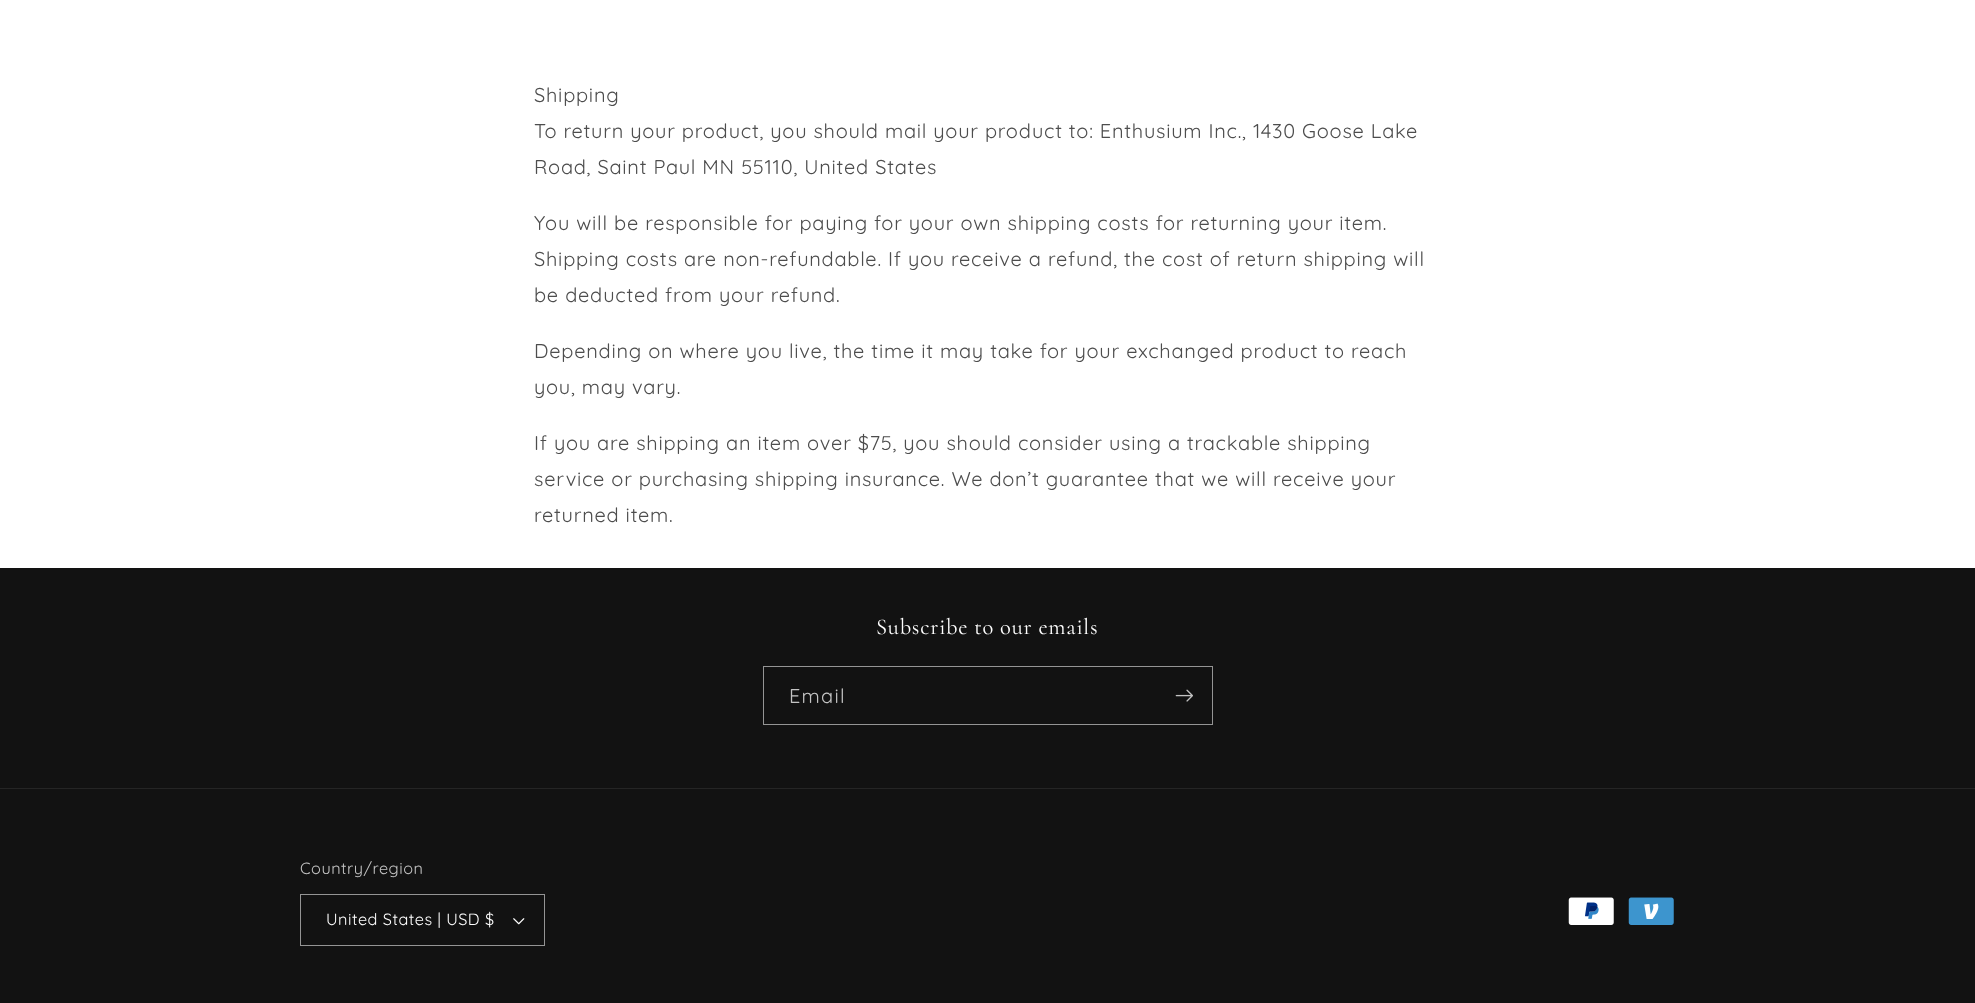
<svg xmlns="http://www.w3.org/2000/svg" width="1975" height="1003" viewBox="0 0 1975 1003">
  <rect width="100%" height="100%" fill="#ffffff"/>
  <text x="534" y="102" font-family="Quicksand" font-size="20" letter-spacing="0.75" fill="#4d4d4d">Shipping</text>
  <text x="534" y="138" font-family="Quicksand" font-size="20" letter-spacing="0.75" fill="#4d4d4d">To return your product, you should mail your product to: Enthusium Inc., 1430 Goose Lake</text>
  <text x="534" y="174" font-family="Quicksand" font-size="20" letter-spacing="0.75" fill="#4d4d4d">Road, Saint Paul MN 55110, United States</text>
  <text x="534" y="230" font-family="Quicksand" font-size="20" letter-spacing="0.75" fill="#4d4d4d">You will be responsible for paying for your own shipping costs for returning your item.</text>
  <text x="534" y="266" font-family="Quicksand" font-size="20" letter-spacing="0.75" fill="#4d4d4d">Shipping costs are non-refundable. If you receive a refund, the cost of return shipping will</text>
  <text x="534" y="302" font-family="Quicksand" font-size="20" letter-spacing="0.75" fill="#4d4d4d">be deducted from your refund.</text>
  <text x="534" y="358" font-family="Quicksand" font-size="20" letter-spacing="0.75" fill="#4d4d4d">Depending on where you live, the time it may take for your exchanged product to reach</text>
  <text x="534" y="394" font-family="Quicksand" font-size="20" letter-spacing="0.75" fill="#4d4d4d">you, may vary.</text>
  <text x="534" y="450" font-family="Quicksand" font-size="20" letter-spacing="0.75" fill="#4d4d4d">If you are shipping an item over $75, you should consider using a trackable shipping</text>
  <text x="534" y="486" font-family="Quicksand" font-size="20" letter-spacing="0.75" fill="#4d4d4d">service or purchasing shipping insurance. We don’t guarantee that we will receive your</text>
  <text x="534" y="522" font-family="Quicksand" font-size="20" letter-spacing="0.75" fill="#4d4d4d">returned item.</text>
  <rect x="0" y="568" width="1975" height="435" fill="#121212"/>
  <text x="876" y="634" font-family="Cormorant" font-size="22.5" letter-spacing="0.75" fill="#ffffff">Subscribe to our emails</text>
  <rect x="763.5" y="666.5" width="449" height="58" fill="none" stroke="#949494"/>
  <text x="789" y="703" font-family="Quicksand" font-size="20" letter-spacing="1.25" fill="#c4c4c4">Email</text>
  <image x="1175" y="689" width="18" height="13" href="img1.png"/>
  <rect x="0" y="788" width="1975" height="1" fill="#252525"/>
  <text x="300" y="874" font-family="Quicksand" font-size="16.25" letter-spacing="0.5" fill="#c4c4c4">Country/region</text>
  <image x="513" y="918" width="12" height="7" href="img2.png"/>
  <rect x="300.5" y="894.5" width="244" height="51" fill="none" stroke="#949494"/>
  <text x="326" y="925" font-family="Quicksand" font-size="16.25" letter-spacing="0.5" fill="#ffffff">United States | USD $</text>
  <image x="1568" y="897" width="46" height="28" href="img3.png"/>
  <image x="1628" y="897" width="46" height="28" href="img4.png"/>
</svg>
